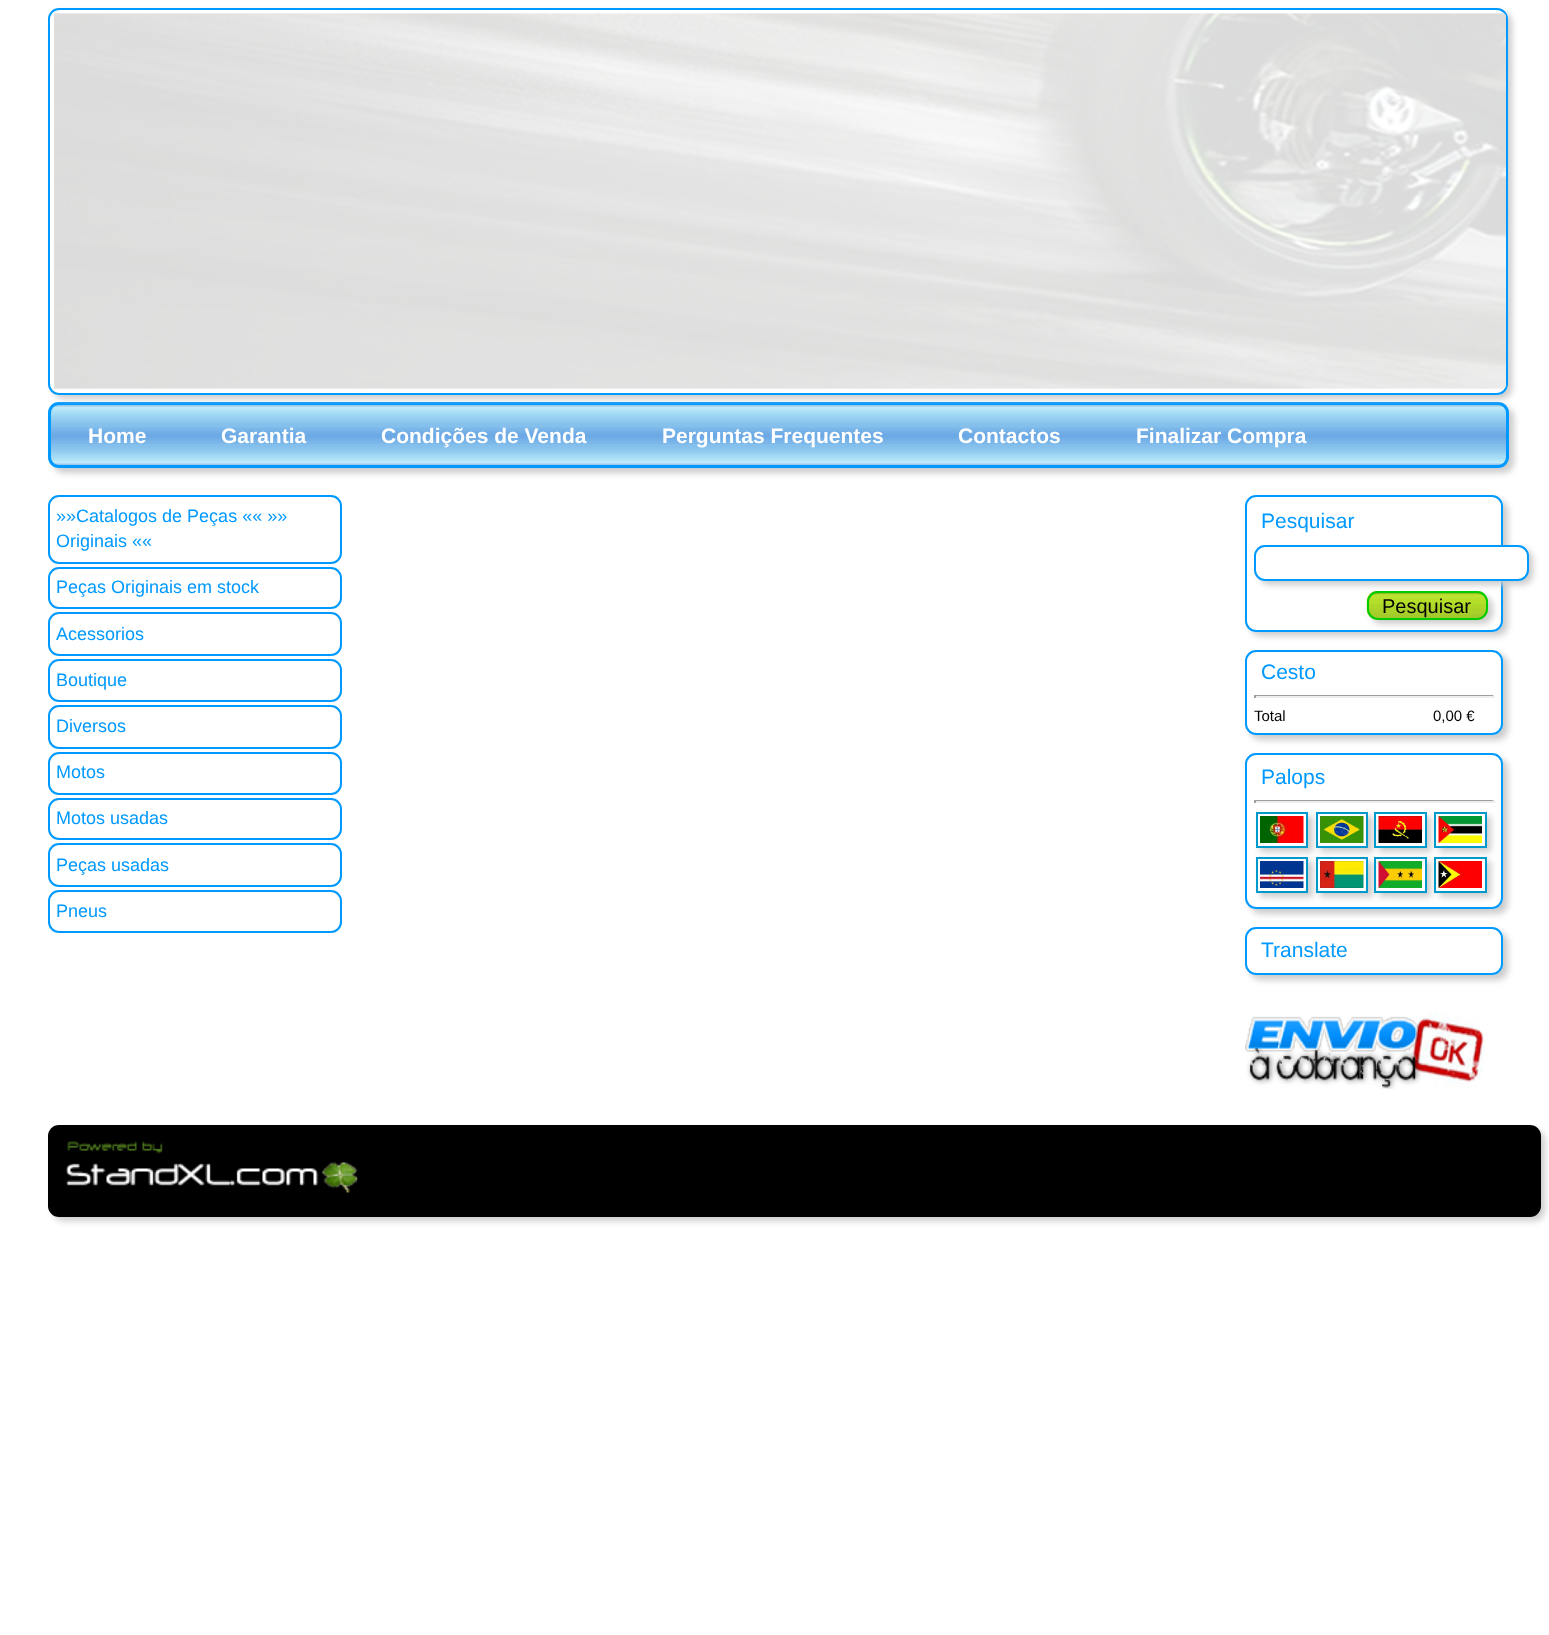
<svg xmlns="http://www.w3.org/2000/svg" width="1549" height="1635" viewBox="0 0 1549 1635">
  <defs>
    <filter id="blur1" x="-50%" y="-200%" width="200%" height="500%"><feGaussianBlur stdDeviation="3"/></filter>
    <clipPath id="clip1"><path d="M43 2H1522V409H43ZM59 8H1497C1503 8 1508 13 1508 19V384C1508 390 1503 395 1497 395H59C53 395 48 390 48 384V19C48 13 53 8 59 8Z" clip-rule="evenodd"/></clipPath>
    <clipPath id="clip2"><path d="M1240 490H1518V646H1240ZM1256 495H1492C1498 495 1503 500 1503 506V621C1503 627 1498 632 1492 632H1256C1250 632 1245 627 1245 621V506C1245 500 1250 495 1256 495Z" clip-rule="evenodd"/></clipPath>
    <clipPath id="clip3"><path d="M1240 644H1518V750H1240ZM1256 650H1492C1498 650 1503 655 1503 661V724C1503 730 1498 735 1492 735H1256C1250 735 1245 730 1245 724V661C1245 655 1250 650 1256 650Z" clip-rule="evenodd"/></clipPath>
    <clipPath id="clip4"><path d="M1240 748H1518V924H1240ZM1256 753H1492C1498 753 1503 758 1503 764V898C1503 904 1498 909 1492 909H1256C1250 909 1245 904 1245 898V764C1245 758 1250 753 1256 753Z" clip-rule="evenodd"/></clipPath>
    <clipPath id="clip5"><path d="M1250 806H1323V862H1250ZM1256 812H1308V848H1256Z" clip-rule="evenodd"/></clipPath>
    <clipPath id="clip6"><path d="M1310 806H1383V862H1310ZM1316 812H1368V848H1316Z" clip-rule="evenodd"/></clipPath>
    <clipPath id="clip7"><path d="M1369 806H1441V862H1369ZM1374 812H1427V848H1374Z" clip-rule="evenodd"/></clipPath>
    <clipPath id="clip8"><path d="M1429 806H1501V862H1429ZM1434 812H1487V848H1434Z" clip-rule="evenodd"/></clipPath>
    <clipPath id="clip9"><path d="M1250 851H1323V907H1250ZM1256 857H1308V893H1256Z" clip-rule="evenodd"/></clipPath>
    <clipPath id="clip10"><path d="M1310 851H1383V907H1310ZM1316 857H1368V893H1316Z" clip-rule="evenodd"/></clipPath>
    <clipPath id="clip11"><path d="M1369 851H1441V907H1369ZM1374 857H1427V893H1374Z" clip-rule="evenodd"/></clipPath>
    <clipPath id="clip12"><path d="M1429 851H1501V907H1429ZM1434 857H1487V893H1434Z" clip-rule="evenodd"/></clipPath>
    <clipPath id="clip13"><path d="M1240 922H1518V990H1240ZM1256 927H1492C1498 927 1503 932 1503 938V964C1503 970 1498 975 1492 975H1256C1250 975 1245 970 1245 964V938C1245 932 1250 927 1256 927Z" clip-rule="evenodd"/></clipPath>
  </defs>
  <rect width="100%" height="100%" fill="#ffffff"/>
  <rect x="53" y="407" width="1461" height="66" rx="11" fill="#cccccc" filter="url(#blur1)"/>
  <image x="48" y="402" width="1461" height="66" href="img3.png"/>
  <rect x="49.5" y="403.5" width="1458" height="63" rx="9.5" fill="none" stroke="#0099ff" stroke-width="3"/>
  <g clip-path="url(#clip1)">
    <rect x="53" y="12" width="1459" height="387" rx="11" fill="#cccccc" filter="url(#blur1)"/>
  </g>
  <rect x="49" y="9" width="1458" height="385" rx="10" fill="none" stroke="#0099ff" stroke-width="2"/>
  <image x="54" y="13" width="1452" height="376" href="img1.png"/>
  <image x="54" y="13" width="1452" height="376" href="img2.png"/>
  <text x="88" y="443" font-family="Liberation Sans" font-size="21" font-weight="bold" fill="#ffffff">Home</text>
  <text x="221" y="443" font-family="Liberation Sans" font-size="21" font-weight="bold" fill="#ffffff">Garantia</text>
  <text x="381" y="443" font-family="Liberation Sans" font-size="21" font-weight="bold" fill="#ffffff">Condições de Venda</text>
  <text x="662" y="443" font-family="Liberation Sans" font-size="21" font-weight="bold" fill="#ffffff">Perguntas Frequentes</text>
  <text x="958" y="443" font-family="Liberation Sans" font-size="21" font-weight="bold" fill="#ffffff">Contactos</text>
  <text x="1136" y="443" font-family="Liberation Sans" font-size="21" font-weight="bold" fill="#ffffff">Finalizar Compra</text>
  <rect x="49" y="496" width="292" height="67" rx="10" fill="none" stroke="#0099ff" stroke-width="2"/>
  <text x="56" y="522" font-family="Liberation Sans" font-size="18" fill="#0099ff">»»Catalogos de Peças «« »»</text>
  <text x="56" y="547" font-family="Liberation Sans" font-size="18" fill="#0099ff">Originais ««</text>
  <rect x="49" y="568" width="292" height="40" rx="10" fill="none" stroke="#0099ff" stroke-width="2"/>
  <text x="56" y="593" font-family="Liberation Sans" font-size="18" fill="#0099ff">Peças Originais em stock</text>
  <rect x="49" y="613" width="292" height="42" rx="10" fill="none" stroke="#0099ff" stroke-width="2"/>
  <text x="56" y="640" font-family="Liberation Sans" font-size="18" fill="#0099ff">Acessorios</text>
  <rect x="49" y="660" width="292" height="41" rx="10" fill="none" stroke="#0099ff" stroke-width="2"/>
  <text x="56" y="686" font-family="Liberation Sans" font-size="18" fill="#0099ff">Boutique</text>
  <rect x="49" y="706" width="292" height="42" rx="10" fill="none" stroke="#0099ff" stroke-width="2"/>
  <text x="56" y="732" font-family="Liberation Sans" font-size="18" fill="#0099ff">Diversos</text>
  <rect x="49" y="753" width="292" height="41" rx="10" fill="none" stroke="#0099ff" stroke-width="2"/>
  <text x="56" y="778" font-family="Liberation Sans" font-size="18" fill="#0099ff">Motos</text>
  <rect x="49" y="799" width="292" height="40" rx="10" fill="none" stroke="#0099ff" stroke-width="2"/>
  <text x="56" y="824" font-family="Liberation Sans" font-size="18" fill="#0099ff">Motos usadas</text>
  <rect x="49" y="844" width="292" height="42" rx="10" fill="none" stroke="#0099ff" stroke-width="2"/>
  <text x="56" y="871" font-family="Liberation Sans" font-size="18" fill="#0099ff">Peças usadas</text>
  <rect x="49" y="891" width="292" height="41" rx="10" fill="none" stroke="#0099ff" stroke-width="2"/>
  <text x="56" y="917" font-family="Liberation Sans" font-size="18" fill="#0099ff">Pneus</text>
  <g clip-path="url(#clip2)">
    <rect x="1250" y="500" width="258" height="136" rx="11" fill="#cccccc" filter="url(#blur1)"/>
  </g>
  <rect x="1246" y="496" width="256" height="135" rx="10" fill="none" stroke="#0099ff" stroke-width="2"/>
  <text x="1261" y="528" font-family="Liberation Sans" font-size="21" fill="#0099ff">Pesquisar</text>
  <rect x="1259" y="549" width="274" height="36" rx="11" fill="#cccccc" filter="url(#blur1)"/>
  <rect x="1255" y="546" width="273" height="34" rx="10" fill="#ffffff" stroke="#0099ff" stroke-width="2"/>
  <rect x="1371" y="596" width="122" height="28" rx="11" fill="#cccccc" filter="url(#blur1)"/>
  <image x="1366" y="591" width="122" height="29" href="img4.png"/>
  <rect x="1368" y="592" width="119" height="27" rx="10" fill="none" stroke="#00cc00" stroke-width="2"/>
  <text x="1382" y="613" font-family="Liberation Sans" font-size="20" fill="#000000">Pesquisar</text>
  <g clip-path="url(#clip3)">
    <rect x="1250" y="654" width="258" height="86" rx="11" fill="#cccccc" filter="url(#blur1)"/>
  </g>
  <rect x="1246" y="651" width="256" height="83" rx="10" fill="none" stroke="#0099ff" stroke-width="2"/>
  <text x="1261" y="679" font-family="Liberation Sans" font-size="21" fill="#0099ff">Cesto</text>
  <rect x="1254" y="695" width="240" height="1" fill="#9f9f9f"/>
  <rect x="1493" y="695" width="2" height="3" fill="#eeeeee"/>
  <rect x="1254" y="696" width="240" height="2" fill="#eeeeee"/>
  <rect x="1254" y="695" width="2" height="3" fill="#9f9f9f"/>
  <text x="1254" y="721" font-family="Liberation Sans" font-size="15" fill="#000000">Total</text>
  <text x="1433" y="721" font-family="Liberation Sans" font-size="15" fill="#000000">0,00 €</text>
  <g clip-path="url(#clip4)">
    <rect x="1250" y="758" width="258" height="156" rx="11" fill="#cccccc" filter="url(#blur1)"/>
  </g>
  <rect x="1246" y="754" width="256" height="154" rx="10" fill="none" stroke="#0099ff" stroke-width="2"/>
  <text x="1261" y="784" font-family="Liberation Sans" font-size="21" fill="#0099ff">Palops</text>
  <rect x="1254" y="800" width="240" height="1" fill="#9f9f9f"/>
  <rect x="1493" y="800" width="2" height="3" fill="#eeeeee"/>
  <rect x="1254" y="801" width="240" height="2" fill="#eeeeee"/>
  <rect x="1254" y="800" width="2" height="3" fill="#9f9f9f"/>
  <g clip-path="url(#clip5)">
    <rect x="1260" y="816" width="53" height="36" fill="#cccccc" filter="url(#blur1)"/>
  </g>
  <g clip-path="url(#clip6)">
    <rect x="1320" y="816" width="53" height="36" fill="#cccccc" filter="url(#blur1)"/>
  </g>
  <g clip-path="url(#clip7)">
    <rect x="1379" y="816" width="52" height="36" fill="#cccccc" filter="url(#blur1)"/>
  </g>
  <g clip-path="url(#clip8)">
    <rect x="1439" y="816" width="52" height="36" fill="#cccccc" filter="url(#blur1)"/>
  </g>
  <rect x="1257" y="813" width="50" height="34" fill="none" stroke="#0099cc" stroke-width="2"/>
  <rect x="1317" y="813" width="50" height="34" fill="none" stroke="#0099cc" stroke-width="2"/>
  <rect x="1375" y="813" width="51" height="34" fill="none" stroke="#0099cc" stroke-width="2"/>
  <rect x="1435" y="813" width="51" height="34" fill="none" stroke="#0099cc" stroke-width="2"/>
  <image x="1260" y="816" width="44" height="27" href="img5.png"/>
  <image x="1320" y="816" width="44" height="27" href="img6.png"/>
  <image x="1378" y="816" width="44" height="27" href="img7.png"/>
  <image x="1438" y="816" width="44" height="27" href="img8.png"/>
  <g clip-path="url(#clip9)">
    <rect x="1260" y="861" width="53" height="36" fill="#cccccc" filter="url(#blur1)"/>
  </g>
  <g clip-path="url(#clip10)">
    <rect x="1320" y="861" width="53" height="36" fill="#cccccc" filter="url(#blur1)"/>
  </g>
  <g clip-path="url(#clip11)">
    <rect x="1379" y="861" width="52" height="36" fill="#cccccc" filter="url(#blur1)"/>
  </g>
  <g clip-path="url(#clip12)">
    <rect x="1439" y="861" width="52" height="36" fill="#cccccc" filter="url(#blur1)"/>
  </g>
  <rect x="1257" y="858" width="50" height="34" fill="none" stroke="#0099cc" stroke-width="2"/>
  <rect x="1317" y="858" width="50" height="34" fill="none" stroke="#0099cc" stroke-width="2"/>
  <rect x="1375" y="858" width="51" height="34" fill="none" stroke="#0099cc" stroke-width="2"/>
  <rect x="1435" y="858" width="51" height="34" fill="none" stroke="#0099cc" stroke-width="2"/>
  <image x="1260" y="861" width="44" height="27" href="img9.png"/>
  <image x="1320" y="861" width="44" height="27" href="img10.png"/>
  <image x="1378" y="861" width="44" height="27" href="img11.png"/>
  <image x="1438" y="861" width="44" height="27" href="img12.png"/>
  <g clip-path="url(#clip13)">
    <rect x="1250" y="932" width="258" height="48" rx="11" fill="#cccccc" filter="url(#blur1)"/>
  </g>
  <rect x="1246" y="928" width="256" height="46" rx="10" fill="none" stroke="#0099ff" stroke-width="2"/>
  <text x="1261" y="957" font-family="Liberation Sans" font-size="21" fill="#0099ff">Translate</text>
  <image x="1245" y="1012" width="240" height="77" href="img13.png"/>
  <rect x="53" y="1130" width="1492" height="91" rx="11" fill="#cccccc" filter="url(#blur1)"/>
  <rect x="48" y="1125" width="1493" height="92" rx="11" fill="#000000"/>
  <image x="65" y="1141" width="293" height="52" href="img14.png"/>
</svg>
